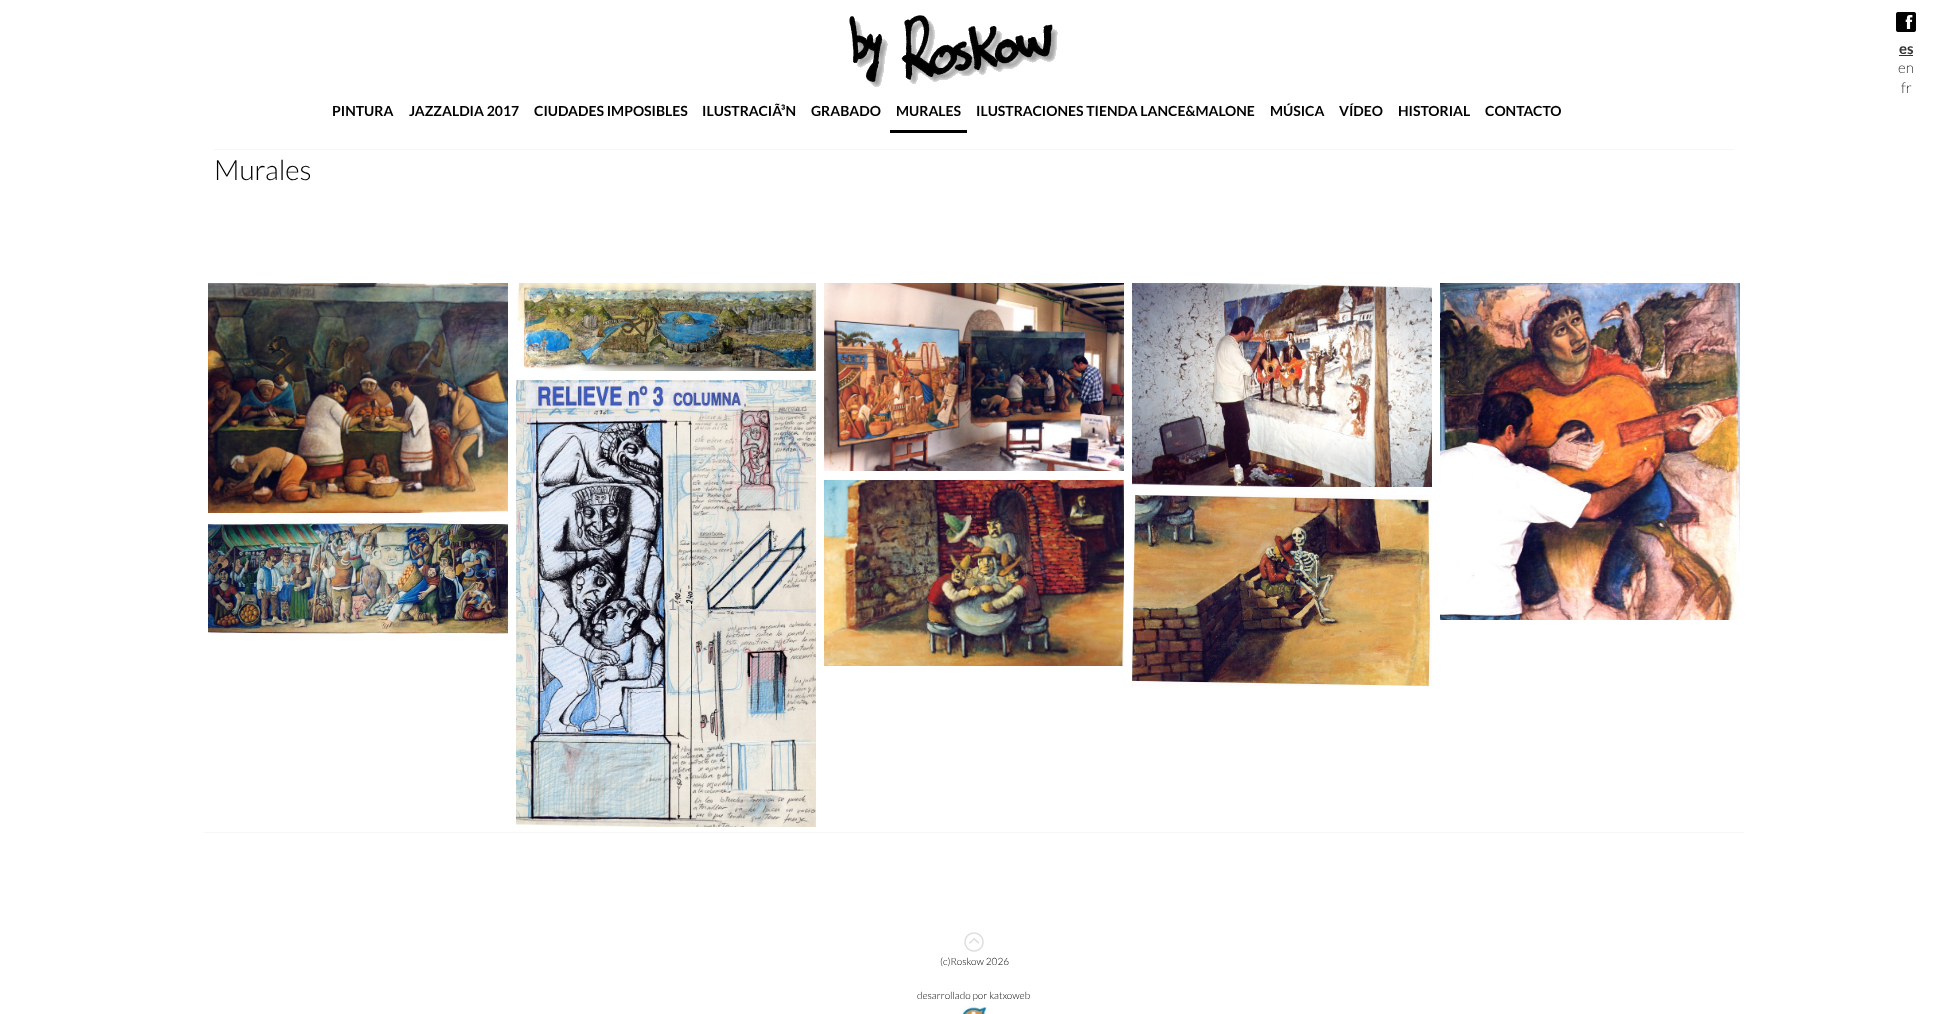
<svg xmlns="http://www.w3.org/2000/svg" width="1948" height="1014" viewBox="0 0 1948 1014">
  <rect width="100%" height="100%" fill="#ffffff"/>
  <image x="1896" y="12" width="20" height="20" href="img1.png"/>
  <text x="1899" y="54" font-family="Lato" font-size="15" font-weight="bold" fill="#333333">es</text>
  <rect x="1899" y="55" width="14" height="1" fill="#333333"/>
  <text x="1898" y="73" font-family="Lato" font-size="15" font-weight="300" fill="#333333">en</text>
  <text x="1901" y="93" font-family="Lato" font-size="15" font-weight="300" fill="#333333">fr</text>
  <image x="849" y="15" width="209" height="72" href="img2.png"/>
  <text x="332" y="116" font-family="Lato" font-size="14" font-weight="bold" fill="#000000">PINTURA</text>
  <text x="409" y="116" font-family="Lato" font-size="14" font-weight="bold" fill="#000000">JAZZALDIA 2017</text>
  <text x="534" y="116" font-family="Lato" font-size="14" font-weight="bold" fill="#000000">CIUDADES IMPOSIBLES</text>
  <text x="702" y="116" font-family="Lato" font-size="14" font-weight="bold" fill="#000000">ILUSTRACIÃ³N</text>
  <text x="811" y="116" font-family="Lato" font-size="14" font-weight="bold" fill="#000000">GRABADO</text>
  <rect x="890" y="130" width="77" height="3" fill="#000000"/>
  <text x="896" y="116" font-family="Lato" font-size="14" font-weight="bold" fill="#000000">MURALES</text>
  <text x="976" y="116" font-family="Lato" font-size="14" font-weight="bold" fill="#000000">ILUSTRACIONES TIENDA LANCE&amp;MALONE</text>
  <text x="1270" y="116" font-family="Lato" font-size="14" font-weight="bold" fill="#000000">MÚSICA</text>
  <text x="1339" y="116" font-family="Lato" font-size="14" font-weight="bold" fill="#000000">VÍDEO</text>
  <text x="1398" y="116" font-family="Lato" font-size="14" font-weight="bold" fill="#000000">HISTORIAL</text>
  <text x="1485" y="116" font-family="Lato" font-size="14" font-weight="bold" fill="#000000">CONTACTO</text>
  <rect x="214" y="149" width="1520" height="1" fill="#f7f7f7"/>
  <text x="214" y="180" font-family="Lato" font-size="28" font-weight="300" fill="#000000">Murales</text>
  <image x="517" y="283" width="299" height="88" href="img3.png"/>
  <image x="824" y="283" width="300" height="188" href="img4.png"/>
  <image x="1132" y="283" width="300" height="204" href="img5.png"/>
  <text x="1261" y="391" font-family="Lato" font-size="16" letter-spacing="2" fill="#b58a78">003-</text>
  <image x="208" y="283" width="300" height="230" href="img6.png"/>
  <text x="371" y="404" font-family="Lato" font-size="16" letter-spacing="2" fill="#562d28">-</text>
  <image x="1440" y="283" width="300" height="337" href="img7.png"/>
  <text x="1603" y="458" font-family="Lato" font-size="16" letter-spacing="2" fill="#f3bba5">-</text>
  <image x="208" y="521" width="300" height="113" href="img8.png"/>
  <image x="824" y="480" width="300" height="186" href="img9.png"/>
  <text x="953" y="579" font-family="Lato" font-size="16" letter-spacing="2" fill="#98835d">006-</text>
  <image x="1132" y="495" width="300" height="191" href="img10.png"/>
  <text x="1265" y="597" font-family="Lato" font-size="16" letter-spacing="2" fill="#554738">007</text>
  <image x="516" y="380" width="300" height="447" href="img11.png"/>
  <text x="645" y="610" font-family="Lato" font-size="16" letter-spacing="2" fill="#8a919c">001-</text>
  <rect x="204" y="832" width="1540" height="1" fill="#f7f7f7"/>
  <image x="964" y="932" width="20" height="20" href="img12.png"/>
  <text x="940" y="965" font-family="Lato" font-size="10" font-weight="300" fill="#000000">(c)Roskow 2026</text>
  <text x="917" y="999" font-family="Lato" font-size="10" font-weight="300" fill="#000000">desarrollado por katxoweb</text>
  <image x="962" y="1006" width="25" height="8" href="img13.png"/>
</svg>
